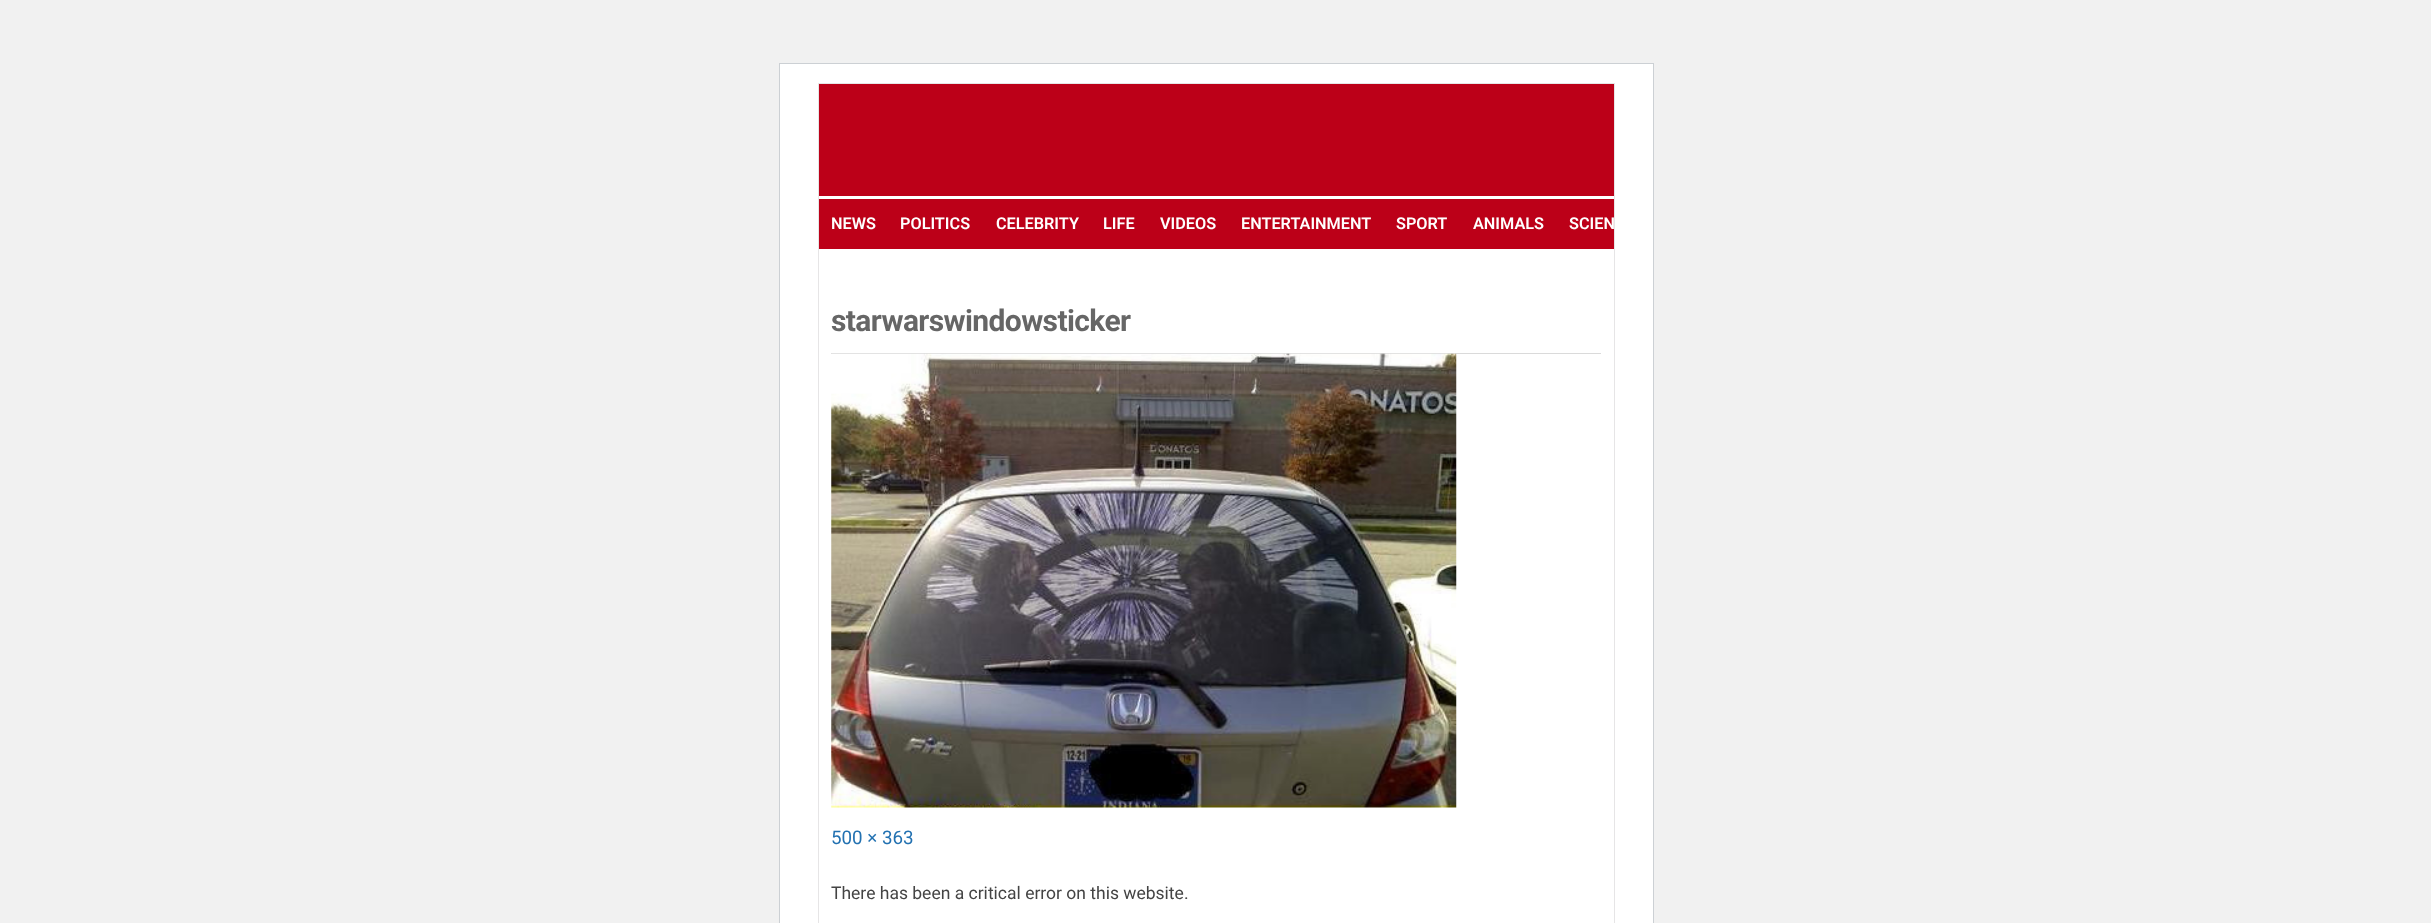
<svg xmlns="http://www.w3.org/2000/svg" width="2431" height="923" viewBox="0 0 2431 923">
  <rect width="100%" height="100%" fill="#f1f1f1"/>
  <rect x="779.5" y="63.5" width="874" height="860" fill="#ffffff" stroke="#ccd0d4"/>
  <rect x="818.5" y="83.5" width="796" height="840" fill="none" stroke="#e6e5e6"/>
  <rect x="819" y="84" width="795" height="112" fill="#bc0018"/>
  <rect x="819" y="199" width="795" height="50" fill="#bc0018"/>
  <text x="831" y="229" font-family="Roboto" font-size="16.25" font-weight="600" fill="#ffffff">NEWS</text>
  <text x="900" y="229" font-family="Roboto" font-size="16.25" font-weight="600" fill="#ffffff">POLITICS</text>
  <text x="996" y="229" font-family="Roboto" font-size="16.25" font-weight="600" fill="#ffffff">CELEBRITY</text>
  <text x="1103" y="229" font-family="Roboto" font-size="16.25" font-weight="600" fill="#ffffff">LIFE</text>
  <text x="1160" y="229" font-family="Roboto" font-size="16.25" font-weight="600" fill="#ffffff">VIDEOS</text>
  <text x="1241" y="229" font-family="Roboto" font-size="16.25" font-weight="600" fill="#ffffff">ENTERTAINMENT</text>
  <text x="1396" y="229" font-family="Roboto" font-size="16.25" font-weight="600" fill="#ffffff">SPORT</text>
  <text x="1473" y="229" font-family="Roboto" font-size="16.25" font-weight="600" fill="#ffffff">ANIMALS</text>
  <text x="1569" y="229" font-family="Roboto" font-size="16.25" font-weight="600" fill="#ffffff">SCIEN</text>
  <rect x="831" y="353" width="770" height="1" fill="#dadada"/>
  <text x="831" y="331" font-family="Roboto" font-size="30" font-weight="bold" letter-spacing="-0.6" fill="#666666">starwarswindowsticker</text>
  <image x="831" y="353" width="626" height="455" href="img1.png"/>
  <text x="831" y="844" font-family="Roboto" font-size="18.75" fill="#2271b1">500 × 363</text>
  <text x="831" y="899" font-family="Roboto" font-size="17.5" fill="#444444">There has been a critical error on this website.</text>
</svg>
